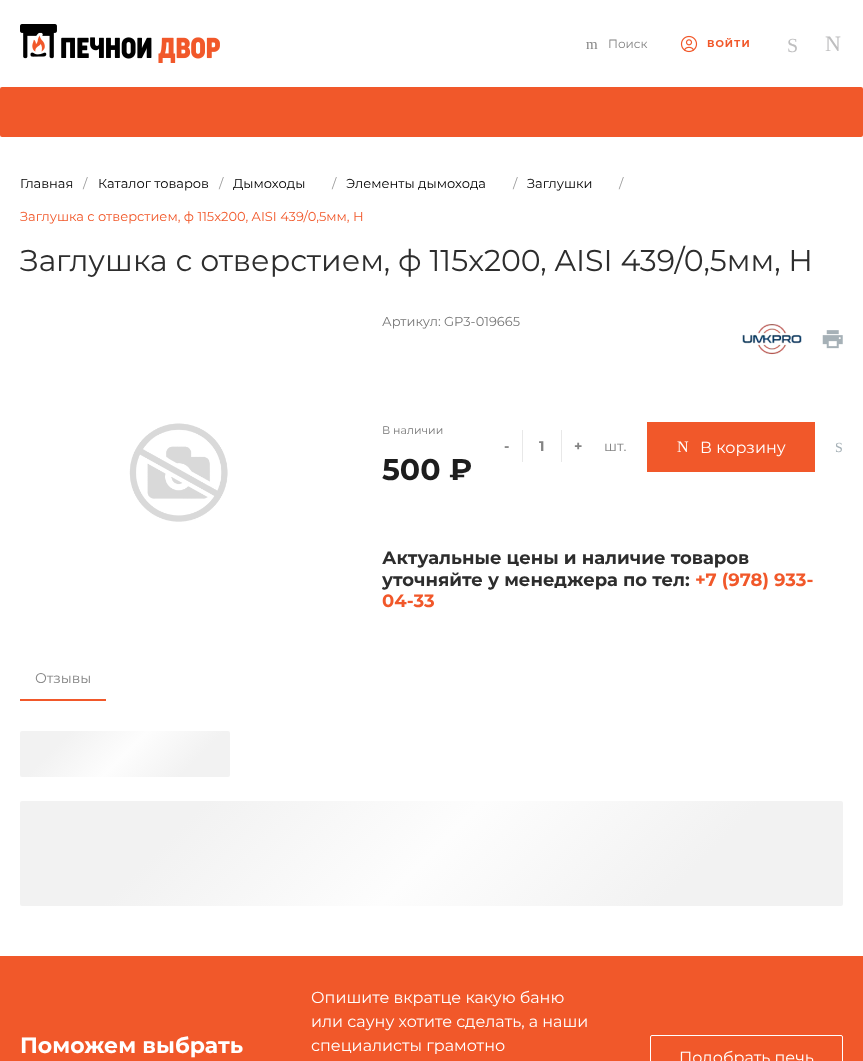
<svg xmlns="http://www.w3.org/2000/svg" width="863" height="1061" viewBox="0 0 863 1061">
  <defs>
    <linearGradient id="g1" gradientUnits="userSpaceOnUse" x1="-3" y1="626" x2="253" y2="882"><stop offset="0.35" stop-color="#f2f2f2"/><stop offset="0.5" stop-color="#fdfdfd"/><stop offset="0.65" stop-color="#f2f2f2"/></linearGradient>
    <linearGradient id="g2" gradientUnits="userSpaceOnUse" x1="-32" y1="389" x2="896" y2="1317"><stop offset="0.35" stop-color="#f2f2f2"/><stop offset="0.5" stop-color="#fdfdfd"/><stop offset="0.65" stop-color="#f2f2f2"/></linearGradient>
  </defs>
  <rect width="100%" height="100%" fill="#ffffff"/>
  <image x="20" y="24" width="200" height="39" href="img1.png"/>
  <text x="586" y="49" font-family="Liberation Serif" font-size="15" fill="#848484">m</text>
  <text x="608" y="48" font-family="Montserrat" font-size="12" fill="#848484">Поиск</text>
  <image x="680" y="35" width="18" height="18" href="img2.png"/>
  <text x="707" y="47" font-family="Montserrat" font-size="10" font-weight="bold" letter-spacing="1" fill="#f1582a">ВОЙТИ</text>
  <text x="787" y="52" font-family="Liberation Serif" font-size="20" fill="#bebebf">S</text>
  <text x="825" y="51" font-family="Liberation Serif" font-size="22" fill="#bebebf">N</text>
  <rect x="0" y="87" width="863" height="50" rx="2" fill="#f1582a"/>
  <text x="20" y="188" font-family="Montserrat" font-size="13" fill="#000000">Главная</text>
  <text x="83" y="188" font-family="Montserrat" font-size="13" fill="#9a9a9a">/</text>
  <text x="98" y="188" font-family="Montserrat" font-size="13" fill="#000000">Каталог товаров</text>
  <text x="219" y="188" font-family="Montserrat" font-size="13" fill="#9a9a9a">/</text>
  <text x="233" y="188" font-family="Montserrat" font-size="13" fill="#000000">Дымоходы</text>
  <text x="332" y="188" font-family="Montserrat" font-size="13" fill="#9a9a9a">/</text>
  <text x="346" y="188" font-family="Montserrat" font-size="13" fill="#000000">Элементы дымохода</text>
  <text x="513" y="188" font-family="Montserrat" font-size="13" fill="#9a9a9a">/</text>
  <text x="527" y="188" font-family="Montserrat" font-size="13" fill="#000000">Заглушки</text>
  <text x="619" y="188" font-family="Montserrat" font-size="13" fill="#9a9a9a">/</text>
  <text x="20" y="221" font-family="Montserrat" font-size="13" fill="#f1582a">Заглушка с отверстием, ф 115х200, AISI 439/0,5мм, Н</text>
  <text x="20" y="271" font-family="Montserrat" font-size="30" fill="#2d2d2d">Заглушка с отверстием, ф 115х200, AISI 439/0,5мм, Н</text>
  <image x="129" y="423" width="99" height="99" href="img3.png"/>
  <text x="382" y="326" font-family="Montserrat" font-size="13" fill="#777777">Артикул: GP3-019665</text>
  <image x="742" y="324" width="60" height="31" href="img4.png"/>
  <image x="822" y="330" width="21" height="19" href="img5.png"/>
  <text x="382" y="434" font-family="Montserrat" font-size="11" fill="#777777">В наличии</text>
  <text x="382" y="480" font-family="Montserrat" font-size="30" font-weight="bold" fill="#1d1d1d">500 ₽</text>
  <text x="504" y="451" font-family="Montserrat" font-size="14" font-weight="bold" fill="#848484">-</text>
  <rect x="561" y="430" width="1" height="32" fill="#e8e8e8"/>
  <rect x="522" y="430" width="1" height="32" fill="#e8e8e8"/>
  <text x="539" y="451" font-family="Montserrat" font-size="14" font-weight="bold" fill="#848484">1</text>
  <text x="574" y="451" font-family="Montserrat" font-size="14" font-weight="bold" fill="#848484">+</text>
  <text x="604" y="451" font-family="Montserrat" font-size="14" fill="#848484">шт.</text>
  <rect x="647" y="422" width="168" height="50" fill="#f1582a"/>
  <text x="677" y="452" font-family="Liberation Serif" font-size="16" fill="#ffffff">N</text>
  <text x="700" y="453" font-family="Montserrat" font-size="16" fill="#ffffff">В корзину</text>
  <text x="835" y="452" font-family="Liberation Serif" font-size="14" fill="#a6b1b7">S</text>
  <text x="382" y="564" font-family="Montserrat" font-size="18" font-weight="bold" fill="#2d2d2d">Актуальные цены и наличие товаров</text>
  <text x="382" y="586" font-family="Montserrat" font-size="18" font-weight="bold" fill="#2d2d2d">уточняйте у менеджера по тел:</text>
  <text x="695" y="586" font-family="Montserrat" font-size="18" font-weight="bold" fill="#f1582a">+7 (978) 933-</text>
  <text x="382" y="607" font-family="Montserrat" font-size="18" font-weight="bold" fill="#f1582a">04-33</text>
  <rect x="20" y="699" width="86" height="2" fill="#f1582a"/>
  <text x="35" y="683" font-family="Montserrat" font-size="14" fill="#848484">Отзывы</text>
  <rect x="20" y="731" width="210" height="46" rx="2" fill="url(#g1)"/>
  <rect x="20" y="801" width="823" height="105" rx="2" fill="url(#g2)"/>
  <rect x="0" y="956" width="863" height="105" fill="#f1582a"/>
  <text x="20" y="1053" font-family="Montserrat" font-size="22" font-weight="bold" fill="#ffffff">Поможем выбрать</text>
  <text x="311" y="1003" font-family="Montserrat" font-size="16" fill="#ffffff">Опишите вкратце какую баню</text>
  <text x="311" y="1027" font-family="Montserrat" font-size="16" fill="#ffffff">или сауну хотите сделать, а наши</text>
  <text x="311" y="1051" font-family="Montserrat" font-size="16" fill="#ffffff">специалисты грамотно</text>
  <rect x="650.5" y="1035.5" width="192" height="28" rx="1.5" fill="none" stroke="#ffffff"/>
  <text x="679" y="1063" font-family="Montserrat" font-size="16" fill="#ffffff">Подобрать печь</text>
</svg>
